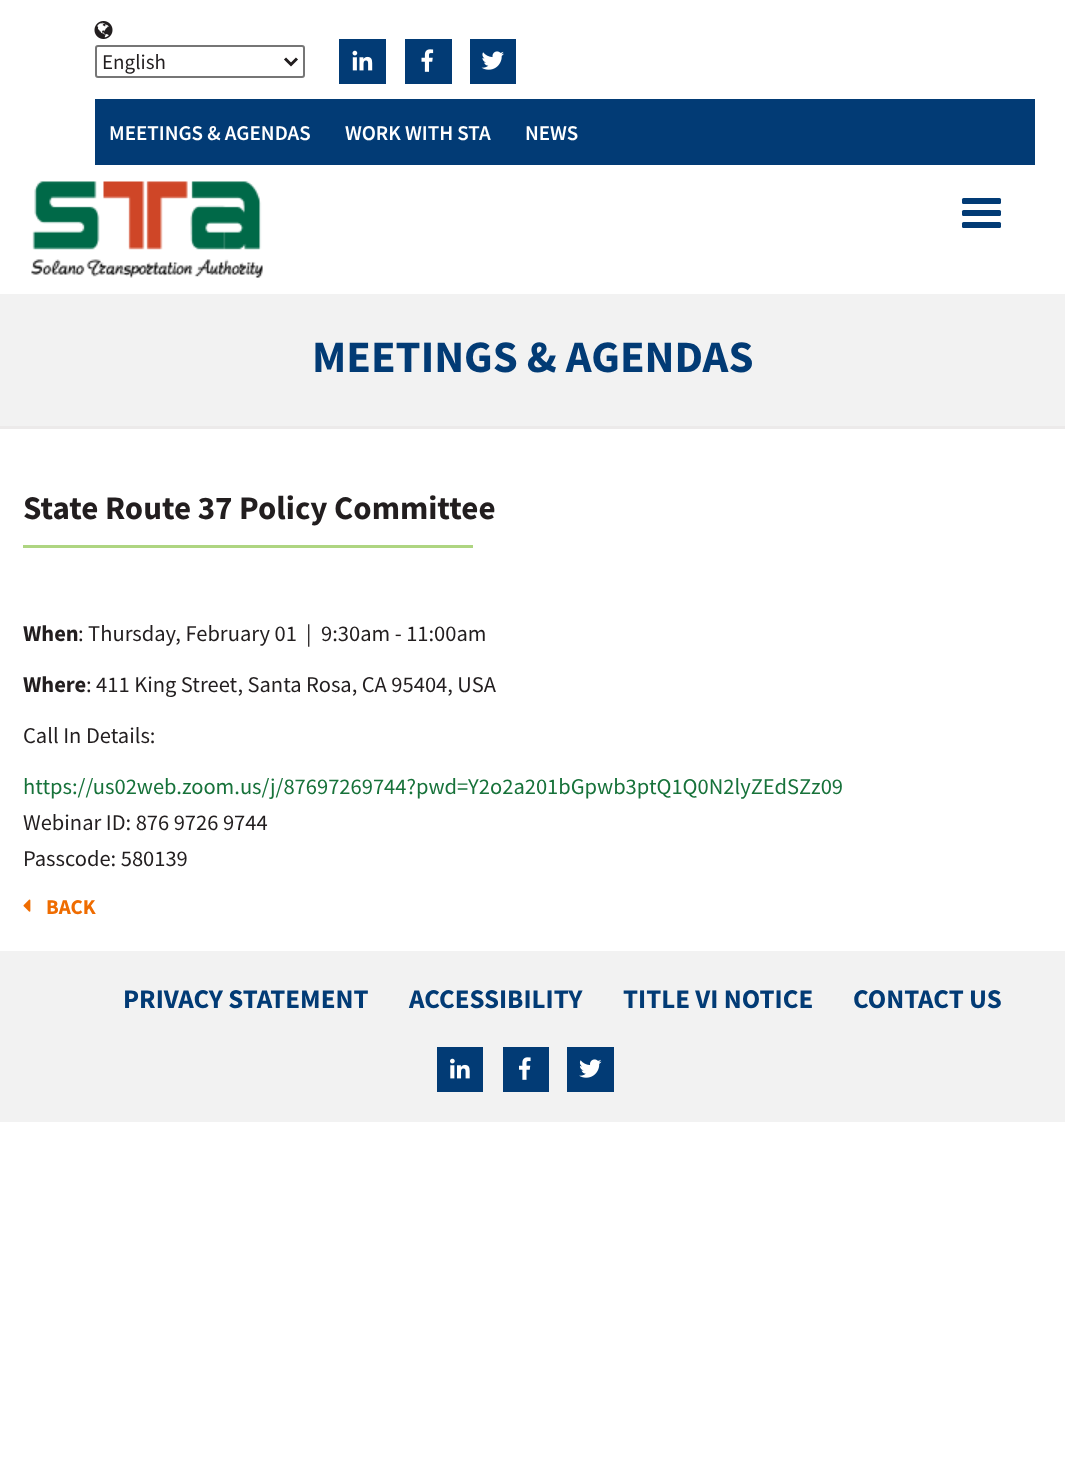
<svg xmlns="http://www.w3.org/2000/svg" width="1065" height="1467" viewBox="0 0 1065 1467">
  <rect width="100%" height="100%" fill="#ffffff"/>
  <image x="94" y="21" width="19" height="18" href="img1.png"/>
  <rect x="96" y="46" width="208" height="31" rx="2" fill="none" stroke="#767676" stroke-width="2"/>
  <path d="M285 58.5L291 64.5L297 58.5" fill="none" stroke="#221e1f" stroke-width="3"/>
  <text x="102" y="69" font-family="Source Sans Pro" font-size="21" fill="#221e1f">English</text>
  <rect x="339" y="39" width="47" height="45" fill="#023b75"/>
  <image x="352" y="50" width="21" height="21" href="img2.png"/>
  <rect x="405" y="39" width="47" height="45" fill="#023b75"/>
  <image x="421" y="49" width="13" height="23" href="img3.png"/>
  <rect x="470" y="39" width="46" height="45" fill="#023b75"/>
  <image x="481" y="51" width="23" height="19" href="img4.png"/>
  <rect x="95" y="99" width="940" height="66" fill="#023b75"/>
  <text x="109" y="140" font-family="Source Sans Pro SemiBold" font-size="21" font-weight="600" fill="#ffffff">MEETINGS &amp; AGENDAS</text>
  <text x="345" y="140" font-family="Source Sans Pro SemiBold" font-size="21" font-weight="600" fill="#ffffff">WORK WITH STA</text>
  <text x="525" y="140" font-family="Source Sans Pro SemiBold" font-size="21" font-weight="600" fill="#ffffff">NEWS</text>
  <image x="31" y="181" width="232" height="97" href="img5.png"/>
  <rect x="962" y="198" width="39" height="6" rx="1.5" fill="#023b75"/>
  <rect x="962" y="210" width="39" height="6" rx="1.5" fill="#023b75"/>
  <rect x="962" y="222" width="39" height="6" rx="1.5" fill="#023b75"/>
  <rect x="0" y="294" width="1065" height="132" fill="#f2f2f2"/>
  <rect x="0" y="426" width="1065" height="3" fill="#eceaea"/>
  <text x="312" y="372" font-family="Source Sans Pro" font-size="45" font-weight="bold" fill="#023b75">MEETINGS &amp; AGENDAS</text>
  <text x="23" y="519" font-family="Source Sans Pro" font-size="33" font-weight="bold" fill="#221e1f">State Route 37 Policy Committee</text>
  <rect x="23" y="545" width="450" height="3" fill="#aed581"/>
  <text x="23" y="641" font-family="Source Sans Pro" font-size="22.5" font-weight="bold" fill="#221e1f">When</text>
  <text x="78" y="641" font-family="Source Sans Pro" font-size="22.5" fill="#221e1f">: Thursday, February 01</text>
  <text x="306" y="641" font-family="Source Sans Pro" font-size="22.5" fill="#221e1f">|</text>
  <text x="321" y="641" font-family="Source Sans Pro" font-size="22.5" fill="#221e1f">9:30am - 11:00am</text>
  <text x="23" y="692" font-family="Source Sans Pro" font-size="22.5" font-weight="bold" fill="#221e1f">Where</text>
  <text x="86" y="692" font-family="Source Sans Pro" font-size="22.5" fill="#221e1f">: 411 King Street, Santa Rosa, CA 95404, USA</text>
  <text x="23" y="743" font-family="Source Sans Pro" font-size="22.5" fill="#221e1f">Call In Details:</text>
  <text x="23" y="794" font-family="Source Sans Pro" font-size="22.5" fill="#17723a">https://us02web.zoom.us/j/87697269744?pwd=Y2o2a201bGpwb3ptQ1Q0N2lyZEdSZz09</text>
  <text x="23" y="830" font-family="Source Sans Pro" font-size="22.5" fill="#221e1f">Webinar ID: 876 9726 9744</text>
  <text x="23" y="866" font-family="Source Sans Pro" font-size="22.5" fill="#221e1f">Passcode: 580139</text>
  <image x="23" y="899" width="8" height="13" href="img6.png"/>
  <text x="46" y="914" font-family="Source Sans Pro" font-size="21" font-weight="bold" fill="#ef6c00">BACK</text>
  <rect x="0" y="951" width="1065" height="171" fill="#f2f2f2"/>
  <text x="123" y="1008" font-family="Source Sans Pro" font-size="27" font-weight="bold" fill="#023b75">PRIVACY STATEMENT</text>
  <text x="409" y="1008" font-family="Source Sans Pro" font-size="27" font-weight="bold" fill="#023b75">ACCESSIBILITY</text>
  <text x="623" y="1008" font-family="Source Sans Pro" font-size="27" font-weight="bold" fill="#023b75">TITLE VI NOTICE</text>
  <text x="853" y="1008" font-family="Source Sans Pro" font-size="27" font-weight="bold" fill="#023b75">CONTACT US</text>
  <rect x="437" y="1047" width="46" height="45" fill="#023b75"/>
  <image x="450" y="1058" width="20" height="21" href="img7.png"/>
  <rect x="503" y="1047" width="46" height="45" fill="#023b75"/>
  <image x="519" y="1057" width="12" height="23" href="img8.png"/>
  <rect x="567" y="1047" width="47" height="45" fill="#023b75"/>
  <image x="579" y="1059" width="23" height="19" href="img9.png"/>
</svg>
